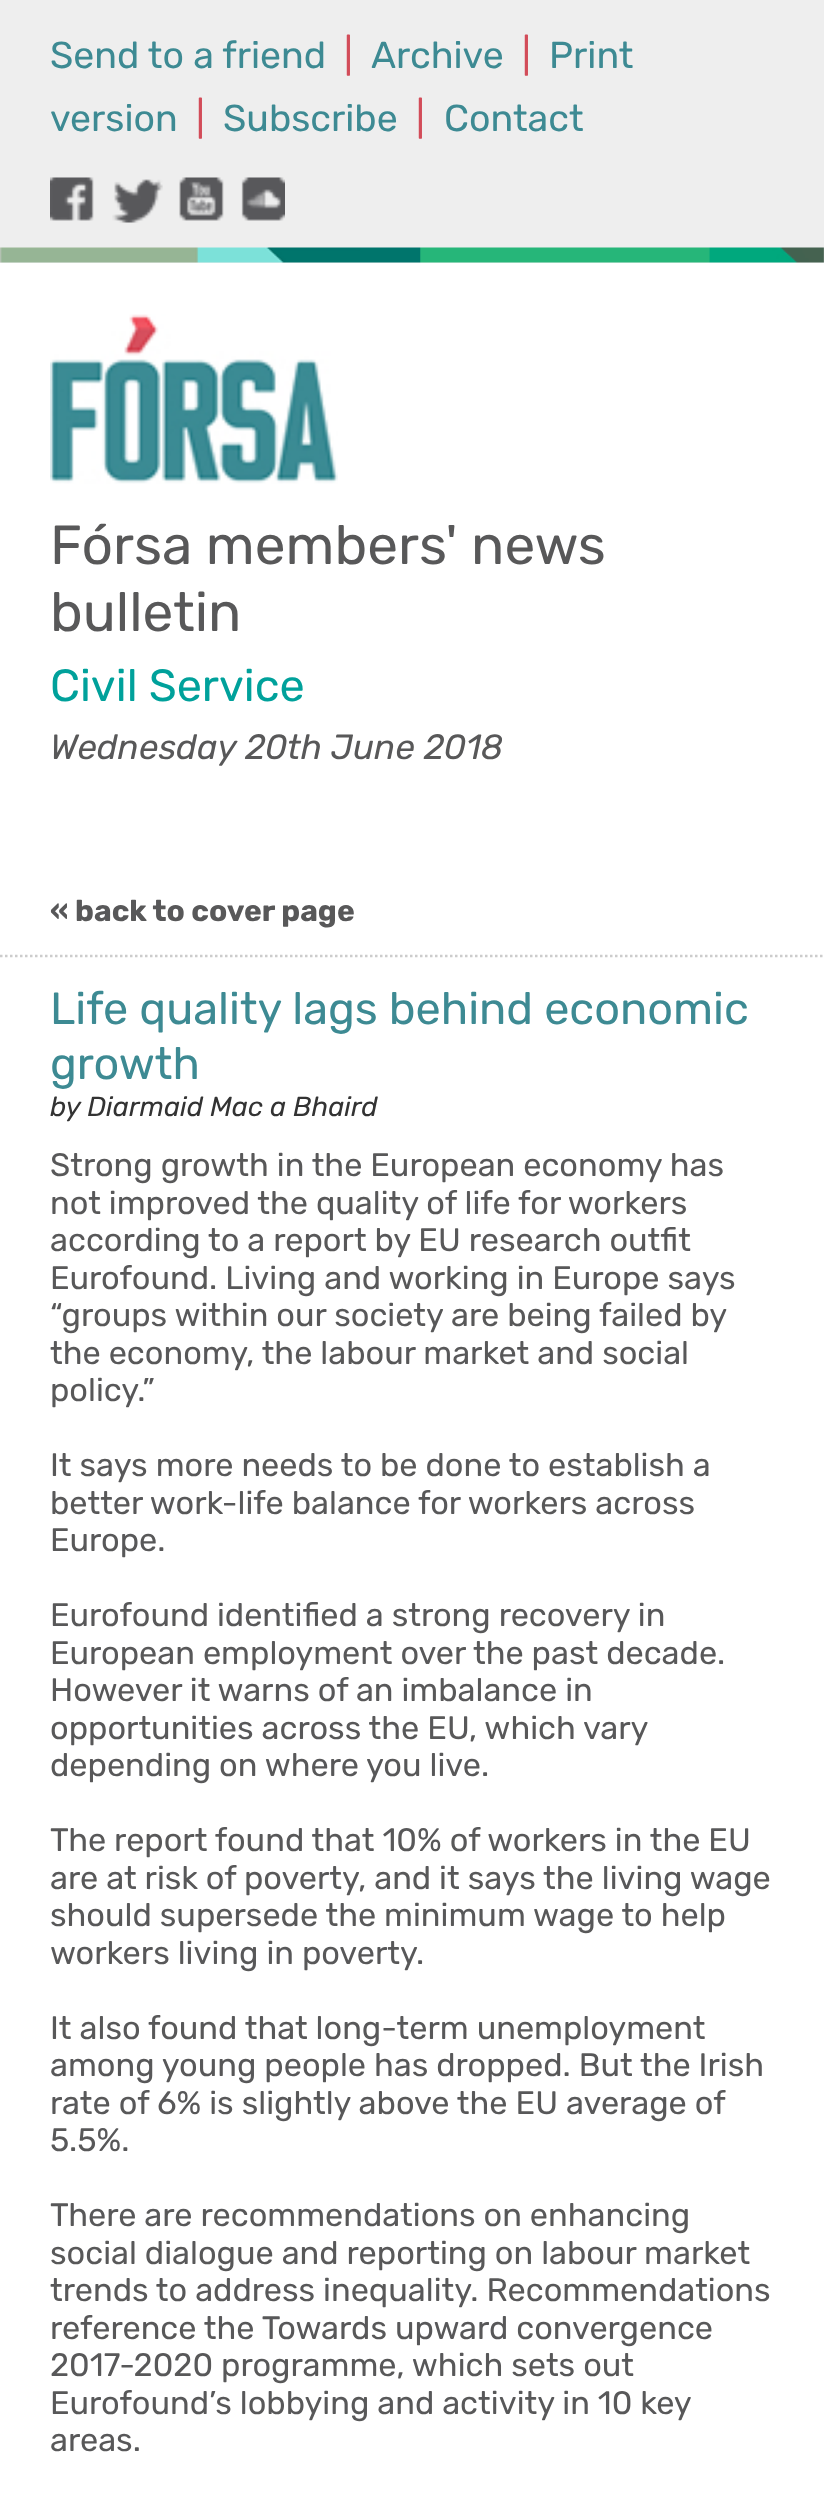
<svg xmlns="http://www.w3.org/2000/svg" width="824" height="2507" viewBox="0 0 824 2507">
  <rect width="100%" height="100%" fill="#ffffff"/>
  <rect x="0" y="0" width="824" height="248" fill="#eeeeee"/>
  <text x="50" y="68" font-family="Rubik" font-size="37.5" fill="#3d8a93">Send to a friend</text>
  <text x="344" y="68" font-family="Rubik" font-size="37.5" fill="#d24c59">|</text>
  <text x="371" y="68" font-family="Rubik" font-size="37.5" fill="#3d8a93">Archive</text>
  <text x="522" y="68" font-family="Rubik" font-size="37.5" fill="#d24c59">|</text>
  <text x="549" y="68" font-family="Rubik" font-size="37.5" fill="#3d8a93">Print</text>
  <text x="50" y="131" font-family="Rubik" font-size="37.5" fill="#3d8a93">version</text>
  <text x="196" y="131" font-family="Rubik" font-size="37.5" fill="#d24c59">|</text>
  <text x="223" y="131" font-family="Rubik" font-size="37.5" fill="#3d8a93">Subscribe</text>
  <text x="416" y="131" font-family="Rubik" font-size="37.5" fill="#d24c59">|</text>
  <text x="444" y="131" font-family="Rubik" font-size="37.5" fill="#3d8a93">Contact</text>
  <image x="50" y="177" width="44" height="44" href="img1.png"/>
  <image x="112" y="179" width="51" height="44" href="img2.png"/>
  <image x="179" y="177" width="45" height="44" href="img3.png"/>
  <image x="241" y="177" width="44" height="44" href="img4.png"/>
  <rect x="0" y="262" width="824" height="1" fill="#eeeeee"/>
  <image x="0" y="247" width="824" height="16" href="img5.png"/>
  <image x="50" y="314" width="288" height="170" href="img6.png"/>
  <text x="50" y="564" font-family="Rubik" font-size="55" fill="#585859">Fórsa members' news</text>
  <text x="50" y="631" font-family="Rubik" font-size="55" fill="#585859">bulletin</text>
  <text x="50" y="701" font-family="Rubik" font-size="45" fill="#00a19b">Civil Service</text>
  <text x="50" y="759" font-family="Rubik" font-size="35" font-style="italic" fill="#585859">Wednesday 20th June 2018</text>
  <path d="M0 956H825" fill="none" stroke="#cccccc" stroke-width="2.5" stroke-dasharray="2.5 2.5"/>
  <text x="50" y="921" font-family="Rubik" font-size="30" font-weight="bold" fill="#585859">« back to cover page</text>
  <text x="50" y="1024" font-family="Rubik" font-size="45" fill="#3d8a93">Life quality lags behind economic</text>
  <text x="50" y="1079" font-family="Rubik" font-size="45" fill="#3d8a93">growth</text>
  <text x="50" y="1116" font-family="Rubik" font-size="27.5" font-style="italic" fill="#333333">by Diarmaid Mac a Bhaird</text>
  <text x="50" y="1176" font-family="Rubik" font-size="32.5" fill="#585859">Strong growth in the European economy has</text>
  <text x="50" y="1214" font-family="Rubik" font-size="32.5" fill="#585859">not improved the quality of life for workers</text>
  <text x="50" y="1251" font-family="Rubik" font-size="32.5" fill="#585859">according to a report by EU research outfit</text>
  <text x="50" y="1289" font-family="Rubik" font-size="32.5" fill="#585859">Eurofound. Living and working in Europe says</text>
  <text x="50" y="1326" font-family="Rubik" font-size="32.5" fill="#585859">“groups within our society are being failed by</text>
  <text x="50" y="1364" font-family="Rubik" font-size="32.5" fill="#585859">the economy, the labour market and social</text>
  <text x="50" y="1401" font-family="Rubik" font-size="32.5" fill="#585859">policy.”</text>
  <text x="50" y="1476" font-family="Rubik" font-size="32.5" fill="#585859">It says more needs to be done to establish a</text>
  <text x="50" y="1514" font-family="Rubik" font-size="32.5" fill="#585859">better work-life balance for workers across</text>
  <text x="50" y="1551" font-family="Rubik" font-size="32.5" fill="#585859">Europe.</text>
  <text x="50" y="1626" font-family="Rubik" font-size="32.5" fill="#585859">Eurofound identified a strong recovery in</text>
  <text x="50" y="1664" font-family="Rubik" font-size="32.5" fill="#585859">European employment over the past decade.</text>
  <text x="50" y="1701" font-family="Rubik" font-size="32.5" fill="#585859">However it warns of an imbalance in</text>
  <text x="50" y="1739" font-family="Rubik" font-size="32.5" fill="#585859">opportunities across the EU, which vary</text>
  <text x="50" y="1776" font-family="Rubik" font-size="32.5" fill="#585859">depending on where you live.</text>
  <text x="50" y="1851" font-family="Rubik" font-size="32.5" fill="#585859">The report found that 10% of workers in the EU</text>
  <text x="50" y="1889" font-family="Rubik" font-size="32.5" fill="#585859">are at risk of poverty, and it says the living wage</text>
  <text x="50" y="1926" font-family="Rubik" font-size="32.5" fill="#585859">should supersede the minimum wage to help</text>
  <text x="50" y="1964" font-family="Rubik" font-size="32.5" fill="#585859">workers living in poverty.</text>
  <text x="50" y="2039" font-family="Rubik" font-size="32.5" fill="#585859">It also found that long-term unemployment</text>
  <text x="50" y="2076" font-family="Rubik" font-size="32.5" fill="#585859">among young people has dropped. But the Irish</text>
  <text x="50" y="2114" font-family="Rubik" font-size="32.5" fill="#585859">rate of 6% is slightly above the EU average of</text>
  <text x="50" y="2151" font-family="Rubik" font-size="32.5" fill="#585859">5.5%.</text>
  <text x="50" y="2226" font-family="Rubik" font-size="32.5" fill="#585859">There are recommendations on enhancing</text>
  <text x="50" y="2264" font-family="Rubik" font-size="32.5" fill="#585859">social dialogue and reporting on labour market</text>
  <text x="50" y="2301" font-family="Rubik" font-size="32.5" fill="#585859">trends to address inequality. Recommendations</text>
  <text x="50" y="2339" font-family="Rubik" font-size="32.5" fill="#585859">reference the Towards upward convergence</text>
  <text x="50" y="2376" font-family="Rubik" font-size="32.5" fill="#585859">2017-2020 programme, which sets out</text>
  <text x="50" y="2414" font-family="Rubik" font-size="32.5" fill="#585859">Eurofound’s lobbying and activity in 10 key</text>
  <text x="50" y="2451" font-family="Rubik" font-size="32.5" fill="#585859">areas.</text>
</svg>
